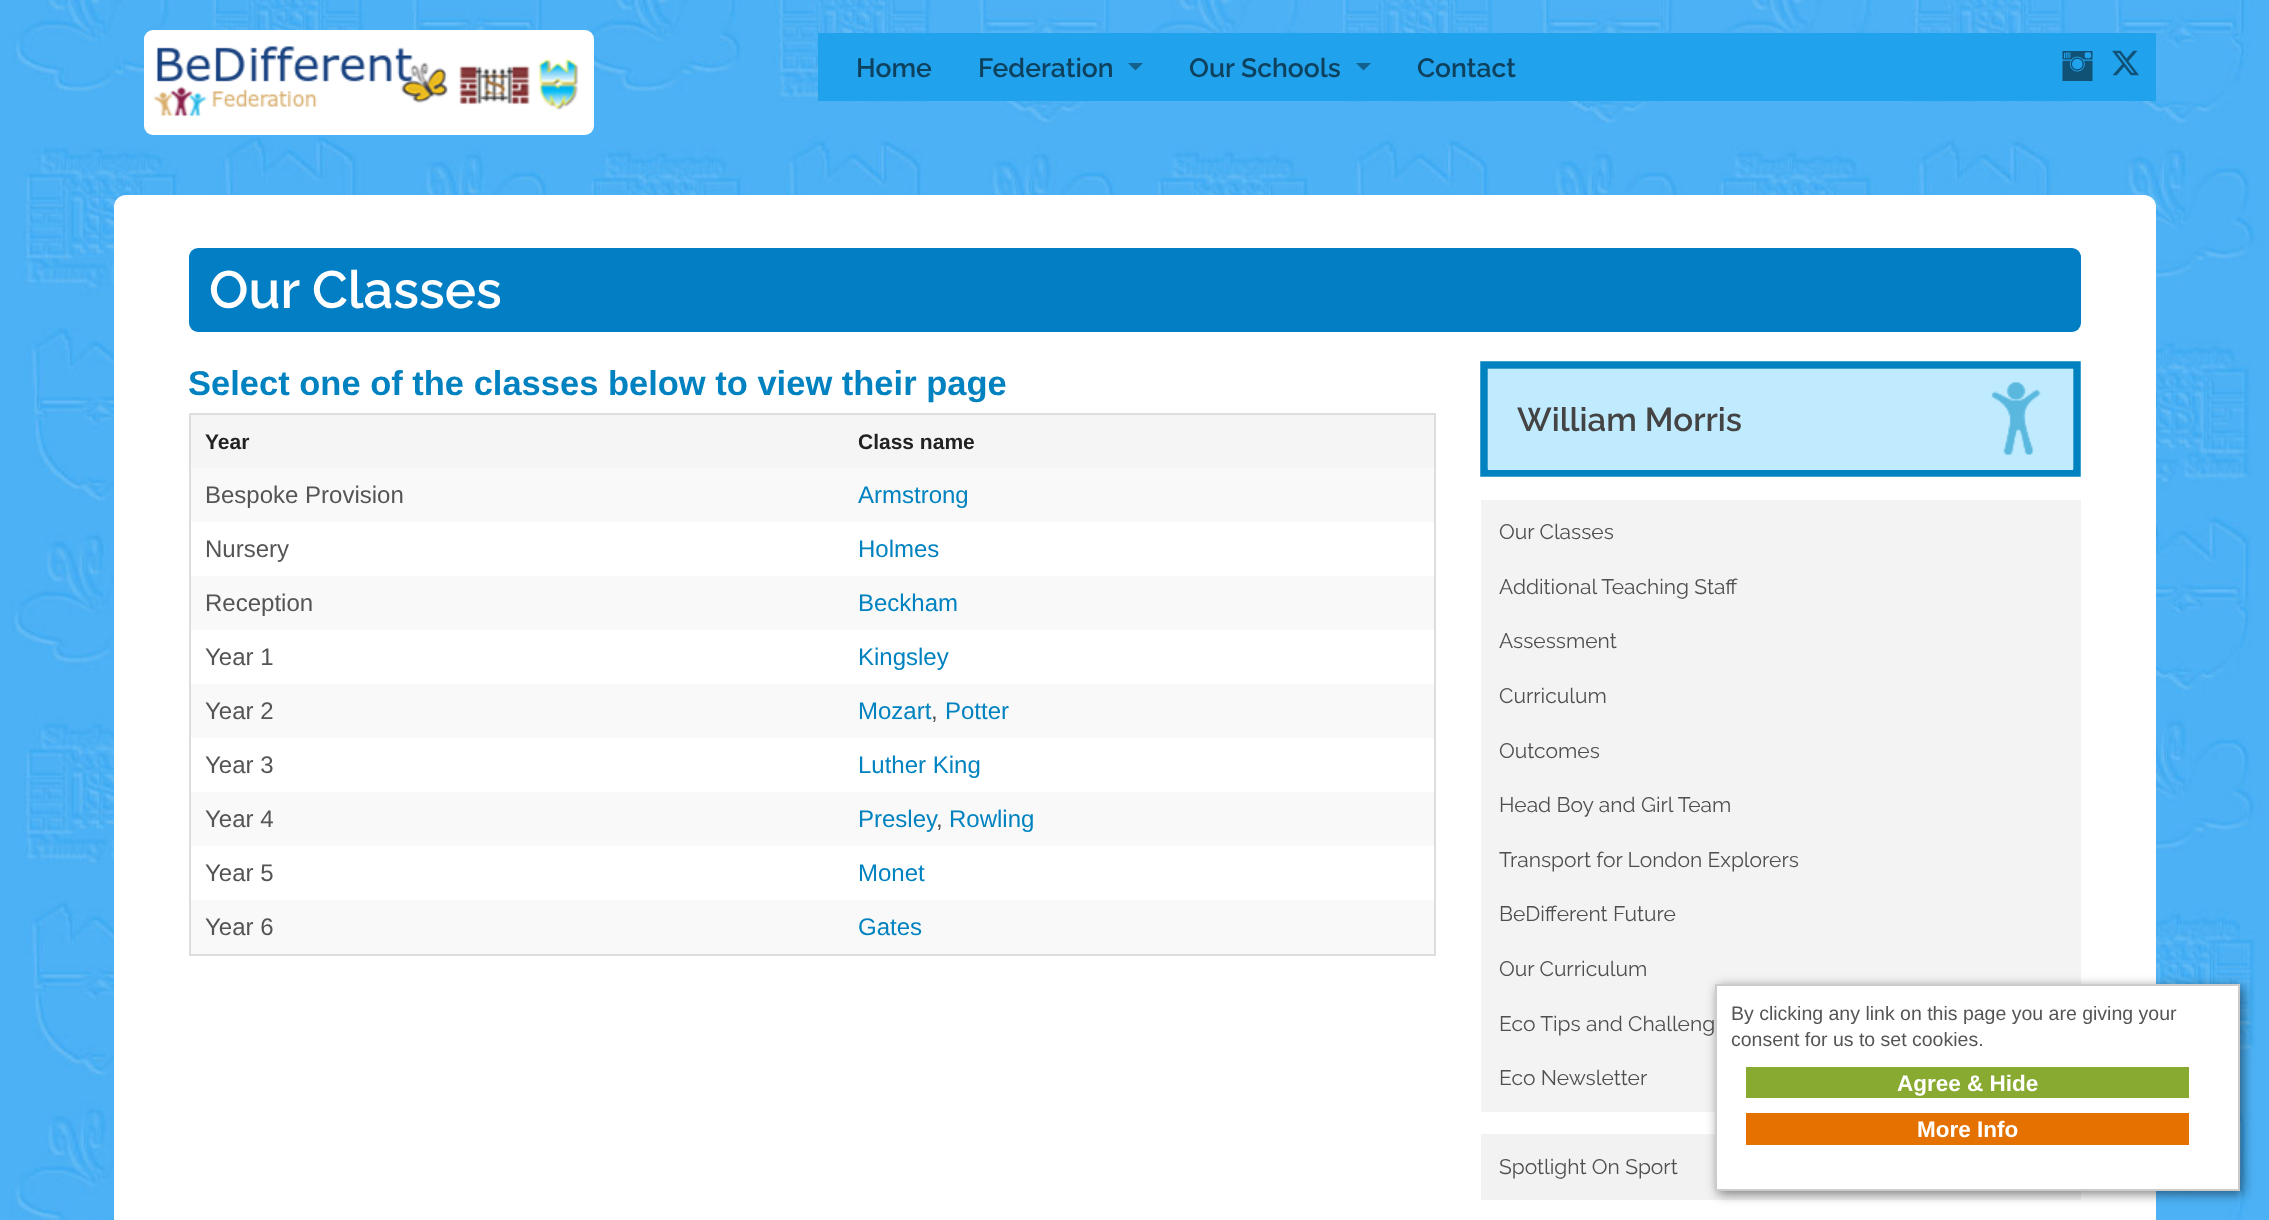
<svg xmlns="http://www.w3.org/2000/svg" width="2269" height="1220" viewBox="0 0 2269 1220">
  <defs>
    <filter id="blur1" x="-50%" y="-200%" width="200%" height="500%"><feGaussianBlur stdDeviation="6"/></filter>
  </defs>
  <rect width="100%" height="100%" fill="#ffffff"/>
  <image x="0" y="0" width="2269" height="1220" href="img1.png"/>
  <image x="144" y="30" width="450" height="105" href="img2.png"/>
  <rect x="818" y="33" width="1338" height="68" fill="#21a2ec"/>
  <text x="856" y="77" font-family="Raleway" font-size="26.5" font-weight="600" fill="#0d415e">Home</text>
  <text x="978" y="77" font-family="Raleway" font-size="26.5" font-weight="600" fill="#0d415e">Federation</text>
  <path d="M1128 63H1143L1135.5 70.5Z" fill="#14618e"/>
  <text x="1189" y="77" font-family="Raleway" font-size="26.5" font-weight="600" fill="#0d415e">Our Schools</text>
  <path d="M1356 63H1371L1363.5 70.5Z" fill="#14618e"/>
  <text x="1417" y="77" font-family="Raleway" font-size="26.5" font-weight="600" fill="#0d415e">Contact</text>
  <image x="2062" y="51" width="31" height="30" href="img3.png"/>
  <image x="2112" y="50" width="27" height="26" href="img4.png"/>
  <rect x="114" y="195" width="2042" height="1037" rx="12" fill="#ffffff"/>
  <rect x="189" y="248" width="1892" height="84" rx="9" fill="#027ec4"/>
  <text x="209" y="308" font-family="Raleway" font-size="52.5" font-weight="600" fill="#ffffff">Our Classes</text>
  <text x="188" y="395" font-family="Liberation Sans" font-size="34.5" font-weight="bold" fill="#0082c0">Select one of the classes below to view their page</text>
  <rect x="189" y="413" width="1247" height="2" fill="#dddddd"/>
  <rect x="1434" y="413" width="2" height="543" fill="#dddddd"/>
  <rect x="189" y="954" width="1247" height="2" fill="#dddddd"/>
  <rect x="189" y="413" width="2" height="543" fill="#dddddd"/>
  <rect x="191" y="415" width="1243" height="53" fill="#f5f5f5"/>
  <text x="205" y="449" font-family="Liberation Sans" font-size="21" font-weight="bold" fill="#222222">Year</text>
  <text x="858" y="449" font-family="Liberation Sans" font-size="21" font-weight="bold" fill="#222222">Class name</text>
  <rect x="191" y="468" width="1243" height="54" fill="#f9f9f9"/>
  <text x="205" y="503" font-family="Liberation Sans" font-size="24" fill="#555555">Bespoke Provision</text>
  <text x="858" y="503" font-family="Liberation Sans" font-size="24" fill="#0082c0">Armstrong</text>
  <text x="205" y="557" font-family="Liberation Sans" font-size="24" fill="#555555">Nursery</text>
  <text x="858" y="557" font-family="Liberation Sans" font-size="24" fill="#0082c0">Holmes</text>
  <rect x="191" y="576" width="1243" height="54" fill="#f9f9f9"/>
  <text x="205" y="611" font-family="Liberation Sans" font-size="24" fill="#555555">Reception</text>
  <text x="858" y="611" font-family="Liberation Sans" font-size="24" fill="#0082c0">Beckham</text>
  <text x="205" y="665" font-family="Liberation Sans" font-size="24" fill="#555555">Year 1</text>
  <text x="858" y="665" font-family="Liberation Sans" font-size="24" fill="#0082c0">Kingsley</text>
  <rect x="191" y="684" width="1243" height="54" fill="#f9f9f9"/>
  <text x="205" y="719" font-family="Liberation Sans" font-size="24" fill="#555555">Year 2</text>
  <text x="858" y="719" font-family="Liberation Sans" font-size="24" fill="#0082c0">Mozart</text>
  <text x="931" y="719" font-family="Liberation Sans" font-size="24" fill="#555555">,</text>
  <text x="945" y="719" font-family="Liberation Sans" font-size="24" fill="#0082c0">Potter</text>
  <text x="205" y="773" font-family="Liberation Sans" font-size="24" fill="#555555">Year 3</text>
  <text x="858" y="773" font-family="Liberation Sans" font-size="24" fill="#0082c0">Luther King</text>
  <rect x="191" y="792" width="1243" height="54" fill="#f9f9f9"/>
  <text x="205" y="827" font-family="Liberation Sans" font-size="24" fill="#555555">Year 4</text>
  <text x="858" y="827" font-family="Liberation Sans" font-size="24" fill="#0082c0">Presley</text>
  <text x="936" y="827" font-family="Liberation Sans" font-size="24" fill="#555555">,</text>
  <text x="949" y="827" font-family="Liberation Sans" font-size="24" fill="#0082c0">Rowling</text>
  <text x="205" y="881" font-family="Liberation Sans" font-size="24" fill="#555555">Year 5</text>
  <text x="858" y="881" font-family="Liberation Sans" font-size="24" fill="#0082c0">Monet</text>
  <rect x="191" y="900" width="1243" height="54" fill="#f9f9f9"/>
  <text x="205" y="935" font-family="Liberation Sans" font-size="24" fill="#555555">Year 6</text>
  <text x="858" y="935" font-family="Liberation Sans" font-size="24" fill="#0082c0">Gates</text>
  <path d="M1484 365H2077V473H1484Z" fill="none" stroke="#0082c0" stroke-width="7.5"/>
  <rect x="1488" y="369" width="585" height="101" fill="#c0ebff"/>
  <image x="1991" y="381" width="50" height="75" href="img5.png"/>
  <text x="1517" y="431" font-family="Raleway" font-size="33" font-weight="600" fill="#444444">William Morris</text>
  <rect x="1481" y="500" width="600" height="612" fill="#f3f3f3"/>
  <text x="1499" y="539" font-family="Raleway" font-size="21" fill="#4f4f4f">Our Classes</text>
  <text x="1499" y="594" font-family="Raleway" font-size="21" fill="#4f4f4f">Additional Teaching Staff</text>
  <text x="1499" y="648" font-family="Raleway" font-size="21" fill="#4f4f4f">Assessment</text>
  <text x="1499" y="703" font-family="Raleway" font-size="21" fill="#4f4f4f">Curriculum</text>
  <text x="1499" y="758" font-family="Raleway" font-size="21" fill="#4f4f4f">Outcomes</text>
  <text x="1499" y="812" font-family="Raleway" font-size="21" fill="#4f4f4f">Head Boy and Girl Team</text>
  <text x="1499" y="867" font-family="Raleway" font-size="21" fill="#4f4f4f">Transport for London Explorers</text>
  <text x="1499" y="921" font-family="Raleway" font-size="21" fill="#4f4f4f">BeDifferent Future</text>
  <text x="1499" y="976" font-family="Raleway" font-size="21" fill="#4f4f4f">Our Curriculum</text>
  <text x="1499" y="1031" font-family="Raleway" font-size="21" fill="#4f4f4f">Eco Tips and Challeng</text>
  <text x="1499" y="1085" font-family="Raleway" font-size="21" fill="#4f4f4f">Eco Newsletter</text>
  <rect x="1481" y="1134" width="600" height="66" fill="#f2f2f2"/>
  <text x="1499" y="1174" font-family="Raleway" font-size="21" fill="#4f4f4f">Spotlight On Sport</text>
  <rect x="1718" y="987" width="525" height="207" fill="#000000" fill-opacity="0.5" filter="url(#blur1)"/>
  <rect x="1716" y="985" width="523" height="205" fill="#ffffff" stroke="#cccccc" stroke-width="2"/>
  <text x="1731" y="1020" font-family="Liberation Sans" font-size="19.5" fill="#555555">By clicking any link on this page you are giving your</text>
  <text x="1731" y="1046" font-family="Liberation Sans" font-size="19.5" fill="#555555">consent for us to set cookies.</text>
  <rect x="1746" y="1067" width="443" height="31" fill="#88aa31"/>
  <text x="1897" y="1091" font-family="Liberation Sans" font-size="22.5" font-weight="bold" fill="#ffffff">Agree &amp; Hide</text>
  <rect x="1746" y="1113" width="443" height="32" fill="#e57200"/>
  <text x="1917" y="1137" font-family="Liberation Sans" font-size="22.5" font-weight="bold" fill="#ffffff">More Info</text>
</svg>
